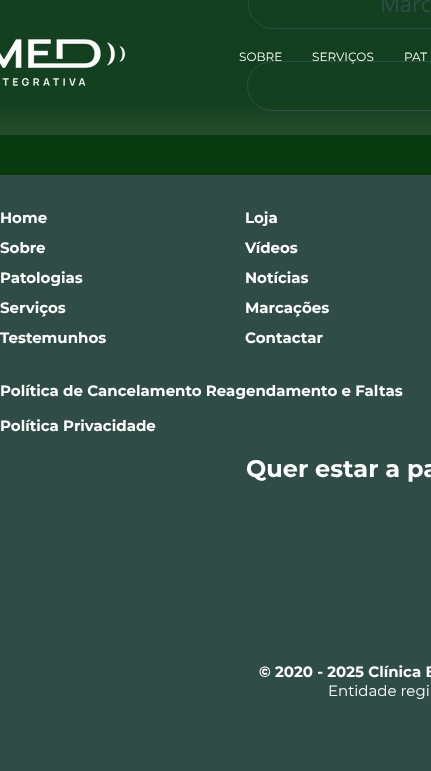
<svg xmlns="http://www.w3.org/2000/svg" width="431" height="771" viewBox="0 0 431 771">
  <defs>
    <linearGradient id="g1" gradientUnits="userSpaceOnUse" x1="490" y1="135" x2="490" y2="0"><stop offset="0" stop-color="#8d8d8d" stop-opacity="0.23"/><stop offset="0.23" stop-color="#2f4d46" stop-opacity="0.3"/></linearGradient>
  </defs>
  <rect width="100%" height="100%" fill="#073a0f"/>
  <rect x="248.5" y="-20.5" width="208" height="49" rx="24.5" fill="none" stroke="#2f4d46"/>
  <text x="380" y="12" font-family="Open Sans" font-size="22" fill="#2f4d46">Marc</text>
  <rect x="247.5" y="61.5" width="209" height="49" rx="24.5" fill="none" stroke="#2f4d46"/>
  <rect x="0" y="0" width="431" height="135" fill="url(#g1)"/>
  <image x="0" y="39" width="126" height="47" href="img1.png"/>
  <text x="239" y="61" font-family="Montserrat" font-size="12" fill="#ffffff">SOBRE</text>
  <text x="312" y="61" font-family="Montserrat" font-size="12" fill="#ffffff">SERVIÇOS</text>
  <text x="404" y="61" font-family="Montserrat" font-size="12" fill="#ffffff">PAT</text>
  <rect x="0" y="175" width="431" height="596" fill="#2f4d46"/>
  <text x="0" y="223" font-family="Montserrat" font-size="15" font-weight="bold" fill="#ffffff">Home</text>
  <text x="0" y="253" font-family="Montserrat" font-size="15" font-weight="bold" fill="#ffffff">Sobre</text>
  <text x="0" y="283" font-family="Montserrat" font-size="15" font-weight="bold" fill="#ffffff">Patologias</text>
  <text x="0" y="313" font-family="Montserrat" font-size="15" font-weight="bold" fill="#ffffff">Serviços</text>
  <text x="0" y="343" font-family="Montserrat" font-size="15" font-weight="bold" fill="#ffffff">Testemunhos</text>
  <text x="245" y="223" font-family="Montserrat" font-size="15" font-weight="bold" fill="#ffffff">Loja</text>
  <text x="245" y="253" font-family="Montserrat" font-size="15" font-weight="bold" fill="#ffffff">Vídeos</text>
  <text x="245" y="283" font-family="Montserrat" font-size="15" font-weight="bold" fill="#ffffff">Notícias</text>
  <text x="245" y="313" font-family="Montserrat" font-size="15" font-weight="bold" fill="#ffffff">Marcações</text>
  <text x="245" y="343" font-family="Montserrat" font-size="15" font-weight="bold" fill="#ffffff">Contactar</text>
  <text x="259" y="677" font-family="Montserrat" font-size="15" font-weight="bold" fill="#ffffff">© 2020 - 2025 Clínica B</text>
  <text x="328" y="696" font-family="Montserrat" font-size="15" fill="#ffffff">Entidade regi</text>
  <text x="0" y="396" font-family="Montserrat" font-size="15" font-weight="bold" fill="#ffffff">Política de Cancelamento Reagendamento e Faltas</text>
  <text x="0" y="431" font-family="Montserrat" font-size="15" font-weight="bold" fill="#ffffff">Política Privacidade</text>
  <text x="246" y="477" font-family="Montserrat" font-size="24" font-weight="bold" fill="#ffffff">Quer estar a pa</text>
</svg>
